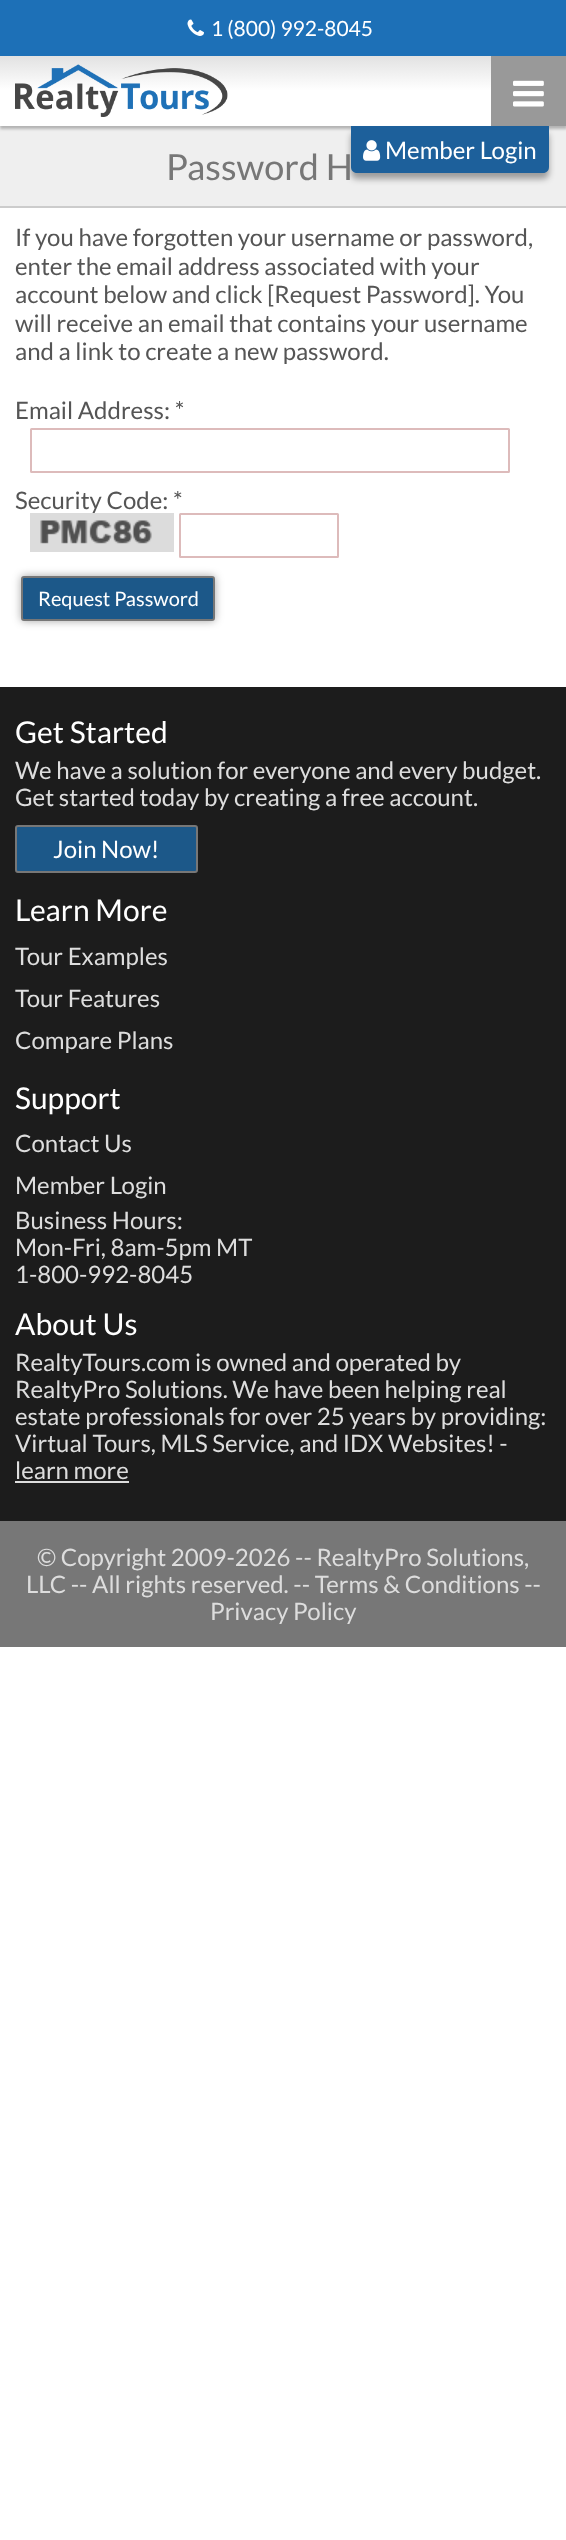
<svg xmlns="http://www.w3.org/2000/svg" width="566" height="2540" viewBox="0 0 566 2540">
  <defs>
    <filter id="blur1" x="-50%" y="-200%" width="200%" height="500%"><feGaussianBlur stdDeviation="1.5"/></filter>
    <linearGradient id="g1" gradientUnits="userSpaceOnUse" x1="284" y1="55" x2="284" y2="126"><stop offset="0" stop-color="#e1e1e1"/><stop offset="0.5" stop-color="#ffffff"/></linearGradient>
    <filter id="blur2" x="-50%" y="-200%" width="200%" height="500%"><feGaussianBlur stdDeviation="3"/></filter>
    <filter id="blur3" x="-50%" y="-200%" width="200%" height="500%"><feGaussianBlur stdDeviation="4"/></filter>
  </defs>
  <rect width="100%" height="100%" fill="#ffffff"/>
  <rect x="0" y="0" width="566" height="56" fill="#1d70b7"/>
  <image x="187" y="19" width="17" height="17" href="img1.png"/>
  <text x="211" y="36" font-family="Lato" font-size="21" fill="#ffffff">1 (800) 992-8045</text>
  <rect x="0" y="126" width="566" height="80" fill="#efefef"/>
  <rect x="0" y="59" width="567" height="70" fill="#000000" fill-opacity="0.25" filter="url(#blur1)"/>
  <rect x="0" y="56" width="491" height="70" fill="url(#g1)"/>
  <image x="15" y="64" width="213" height="53" href="img2.png"/>
  <rect x="491" y="56" width="75" height="70" fill="#999999"/>
  <image x="513" y="80" width="31" height="27" href="img3.png"/>
  <rect x="351" y="132" width="198" height="47" rx="6" fill="#000000" fill-opacity="0.35" filter="url(#blur2)"/>
  <path d="M351 126H549V167C549 170.5 546.5 173 543 173H357C353.5 173 351 170.5 351 167Z" fill="#1d609b"/>
  <image x="363" y="140" width="18" height="21" href="img4.png"/>
  <text x="385" y="159" font-family="Lato" font-size="24" fill="#ffffff">Member Login</text>
  <rect x="0" y="206" width="566" height="2" fill="#cccccc"/>
  <text x="166" y="180" font-family="Lato" font-size="36" fill="#777777">Password H</text>
  <text x="15" y="246" font-family="Lato" font-size="24" fill="#555555">If you have forgotten your username or password,</text>
  <text x="15" y="275" font-family="Lato" font-size="24" fill="#555555">enter the email address associated with your</text>
  <text x="15" y="303" font-family="Lato" font-size="24" fill="#555555">account below and click [Request Password]. You</text>
  <text x="15" y="332" font-family="Lato" font-size="24" fill="#555555">will receive an email that contains your username</text>
  <text x="15" y="360" font-family="Lato" font-size="24" fill="#555555">and a link to create a new password.</text>
  <text x="15" y="419" font-family="Lato" font-size="24" fill="#555555">Email Address: *</text>
  <rect x="31" y="429" width="478" height="43" rx="0.5" fill="none" stroke="#ddbbbb" stroke-width="2"/>
  <text x="15" y="509" font-family="Lato" font-size="24" fill="#555555">Security Code: *</text>
  <image x="30" y="513" width="144" height="39" href="img5.png"/>
  <rect x="180" y="514" width="158" height="43" rx="0.5" fill="none" stroke="#ddbbbb" stroke-width="2"/>
  <rect x="21" y="576" width="194" height="45" rx="3" fill="#000000" fill-opacity="0.35" filter="url(#blur3)"/>
  <rect x="22" y="577" width="192" height="43" rx="2" fill="#1c5889" stroke="#777777" stroke-width="2"/>
  <text x="38" y="606" font-family="Lato" font-size="20" fill="#ffffff">Request Password</text>
  <rect x="0" y="687" width="566" height="834" fill="#1c1c1c"/>
  <text x="15" y="743" font-family="Lato" font-size="30" fill="#ffffff">Get Started</text>
  <text x="15" y="779" font-family="Lato" font-size="24" fill="#dddddd">We have a solution for everyone and every budget.</text>
  <text x="15" y="806" font-family="Lato" font-size="24" fill="#dddddd">Get started today by creating a free account.</text>
  <rect x="16" y="826" width="181" height="46" rx="2" fill="#1c5889" stroke="#777777" stroke-width="2"/>
  <text x="53" y="858" font-family="Lato" font-size="24" fill="#ffffff">Join Now!</text>
  <text x="15" y="921" font-family="Lato" font-size="30" fill="#ffffff">Learn More</text>
  <text x="15" y="965" font-family="Lato" font-size="24" fill="#dddddd">Tour Examples</text>
  <text x="15" y="1007" font-family="Lato" font-size="24" fill="#dddddd">Tour Features</text>
  <text x="15" y="1049" font-family="Lato" font-size="24" fill="#dddddd">Compare Plans</text>
  <text x="15" y="1109" font-family="Lato" font-size="30" fill="#ffffff">Support</text>
  <text x="15" y="1152" font-family="Lato" font-size="24" fill="#dddddd">Contact Us</text>
  <text x="15" y="1194" font-family="Lato" font-size="24" fill="#dddddd">Member Login</text>
  <text x="15" y="1229" font-family="Lato" font-size="24" fill="#dddddd">Business Hours:</text>
  <text x="15" y="1256" font-family="Lato" font-size="24" fill="#dddddd">Mon-Fri, 8am-5pm MT</text>
  <text x="15" y="1283" font-family="Lato" font-size="24" fill="#dddddd">1-800-992-8045</text>
  <text x="15" y="1335" font-family="Lato" font-size="30" fill="#ffffff">About Us</text>
  <text x="15" y="1371" font-family="Lato" font-size="24" fill="#dddddd">RealtyTours.com is owned and operated by</text>
  <text x="15" y="1398" font-family="Lato" font-size="24" fill="#dddddd">RealtyPro Solutions. We have been helping real</text>
  <text x="15" y="1425" font-family="Lato" font-size="24" fill="#dddddd">estate professionals for over 25 years by providing:</text>
  <text x="15" y="1452" font-family="Lato" font-size="24" fill="#dddddd">Virtual Tours, MLS Service, and IDX Websites! -</text>
  <text x="15" y="1479" font-family="Lato" font-size="24" fill="#dddddd">learn more</text>
  <rect x="15" y="1481" width="114" height="2" fill="#dddddd"/>
  <rect x="0" y="1521" width="566" height="126" fill="#777777"/>
  <text x="37" y="1566" font-family="Lato" font-size="24" fill="#dddddd">© Copyright 2009-2026 -- RealtyPro Solutions,</text>
  <text x="26" y="1593" font-family="Lato" font-size="24" fill="#dddddd">LLC -- All rights reserved. -- Terms &amp; Conditions --</text>
  <text x="210" y="1620" font-family="Lato" font-size="24" fill="#dddddd">Privacy Policy</text>
</svg>
